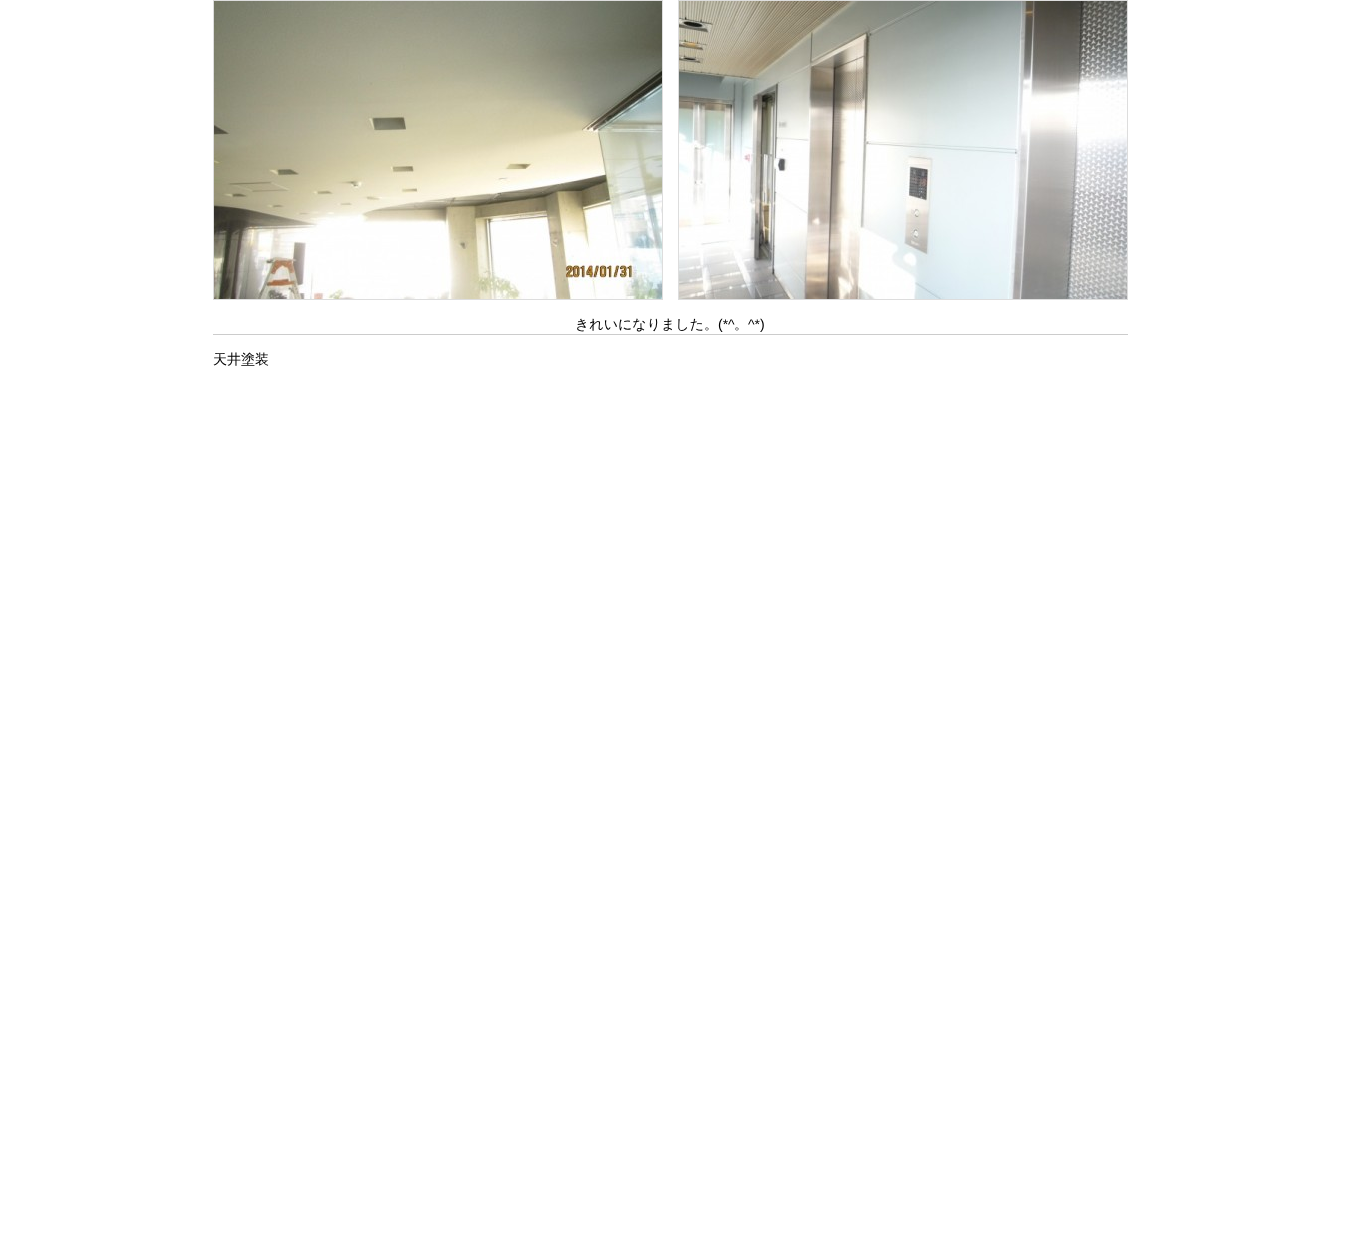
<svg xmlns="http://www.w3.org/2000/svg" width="1355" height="1239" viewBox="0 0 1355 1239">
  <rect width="100%" height="100%" fill="#ffffff"/>
  <rect x="213.5" y="0.5" width="449" height="299" fill="none" stroke="#dddddd"/>
  <image x="214" y="1" width="448" height="298" href="img1.png"/>
  <rect x="678.5" y="0.5" width="449" height="299" fill="none" stroke="#dddddd"/>
  <image x="679" y="1" width="448" height="298" href="img2.png"/>
  <rect x="213" y="334" width="915" height="1" fill="#cccccc"/>
  <text x="575" y="329" font-family="WenQuanYi Zen Hei" font-size="14" font-weight="500" fill="#000000">きれいになりました。</text>
  <text x="718" y="329" font-family="Liberation Sans" font-size="14" fill="#000000">(*^</text>
  <text x="734" y="329" font-family="WenQuanYi Zen Hei" font-size="14" font-weight="500" fill="#000000">。</text>
  <text x="748" y="329" font-family="Liberation Sans" font-size="14" fill="#000000">^*)</text>
  <text x="213" y="364" font-family="WenQuanYi Zen Hei" font-size="14" font-weight="500" fill="#000000">天井塗装</text>
</svg>
